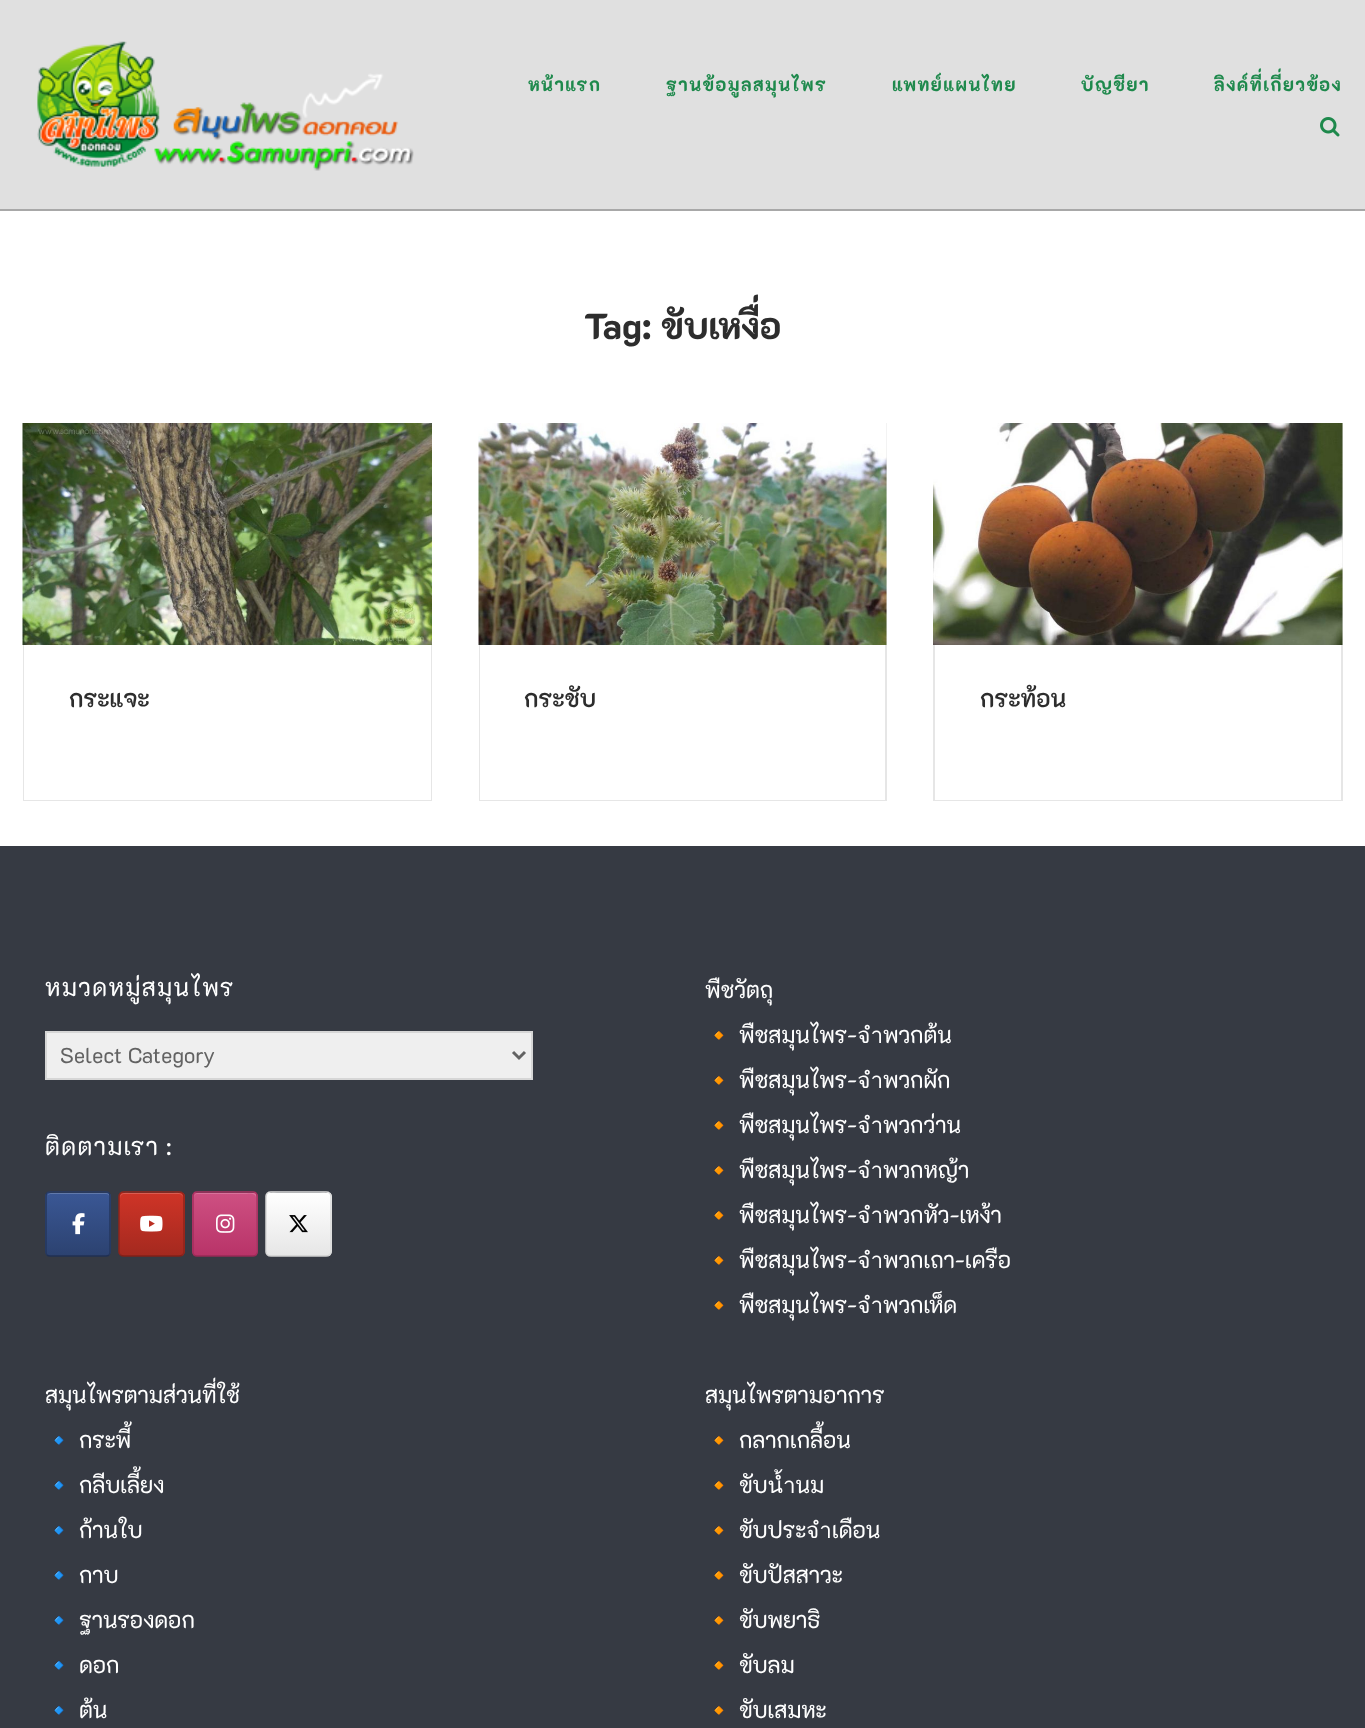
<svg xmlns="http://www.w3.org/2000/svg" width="1365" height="1728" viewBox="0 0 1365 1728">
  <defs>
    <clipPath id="clip1"><rect x="45" y="1191" width="66" height="66" rx="6"/></clipPath>
    <linearGradient id="g1" gradientUnits="userSpaceOnUse" x1="47" y1="1256" x2="47" y2="1193"><stop offset="0" stop-color="#2c4270"/><stop offset="1" stop-color="#3a5795"/></linearGradient>
    <clipPath id="clip2"><rect x="119" y="1191" width="66" height="66" rx="6"/></clipPath>
    <linearGradient id="g2" gradientUnits="userSpaceOnUse" x1="120" y1="1256" x2="120" y2="1193"><stop offset="0" stop-color="#a4291f"/><stop offset="1" stop-color="#cf3427"/></linearGradient>
    <clipPath id="clip3"><rect x="192" y="1191" width="66" height="66" rx="6"/></clipPath>
    <linearGradient id="g3" gradientUnits="userSpaceOnUse" x1="194" y1="1256" x2="194" y2="1193"><stop offset="0" stop-color="#b83368"/><stop offset="1" stop-color="#ce5082"/></linearGradient>
    <clipPath id="clip4"><rect x="266" y="1191" width="66" height="66" rx="6"/></clipPath>
    <linearGradient id="g4" gradientUnits="userSpaceOnUse" x1="267" y1="1256" x2="267" y2="1193"><stop offset="0" stop-color="#e6e6e6"/><stop offset="1" stop-color="#ffffff"/></linearGradient>
  </defs>
  <rect width="100%" height="100%" fill="#ffffff"/>
  <rect x="0" y="0" width="1365" height="209" fill="#e0e0e0"/>
  <rect x="0" y="209" width="1365" height="2" fill="#a8a8a8"/>
  <image x="37" y="41" width="377" height="130" href="img1.png"/>
  <text x="528" y="91" font-family="'K2D'" font-size="18" font-weight="800" letter-spacing="1.5" fill="#1e894c">หน้าแรก</text>
  <text x="666" y="91" font-family="'K2D'" font-size="18" font-weight="800" letter-spacing="1.5" fill="#1e894c">ฐานข้อมูลสมุนไพร</text>
  <text x="892" y="91" font-family="'K2D'" font-size="18" font-weight="800" letter-spacing="1.5" fill="#1e894c">แพทย์แผนไทย</text>
  <text x="1081" y="91" font-family="'K2D'" font-size="18" font-weight="800" letter-spacing="1.5" fill="#1e894c">บัญชียา</text>
  <text x="1214" y="91" font-family="'K2D'" font-size="18" font-weight="800" letter-spacing="1.5" fill="#1e894c">ลิงค์ที่เกี่ยวข้อง</text>
  <image x="1320" y="117" width="20" height="20" href="img2.png"/>
  <text x="584" y="339" font-family="'K2D'" font-size="36" font-weight="800" fill="#2d2d2d">Tag: ขับเหงื่อ</text>
  <rect x="24" y="424" width="407" height="376" fill="none" stroke="#e6e6e6" stroke-width="2"/>
  <image x="22" y="423" width="410" height="222" href="img3.png"/>
  <rect x="24" y="645" width="407" height="155" fill="#ffffff"/>
  <text x="69" y="707" font-family="'K2D'" font-size="24" font-weight="600" fill="#2d2d2d">กระแจะ</text>
  <rect x="480" y="424" width="406" height="376" fill="none" stroke="#e6e6e6" stroke-width="2"/>
  <image x="478" y="423" width="409" height="222" href="img4.png"/>
  <rect x="480" y="645" width="405" height="155" fill="#ffffff"/>
  <text x="524" y="707" font-family="'K2D'" font-size="24" font-weight="600" fill="#2d2d2d">กระชับ</text>
  <rect x="934" y="424" width="408" height="376" fill="none" stroke="#e6e6e6" stroke-width="2"/>
  <image x="933" y="423" width="410" height="222" href="img5.png"/>
  <rect x="935" y="799" width="406" height="1" fill="#ffffff"/>
  <text x="980" y="707" font-family="'K2D'" font-size="24" font-weight="600" fill="#2d2d2d">กระท้อน</text>
  <rect x="0" y="846" width="1365" height="882" fill="#363a43"/>
  <text x="45" y="996" font-family="'K2D'" font-size="24" letter-spacing="1.5" fill="#ffffff">หมวดหมู่สมุนไพร</text>
  <rect x="46" y="1032" width="486" height="47" fill="#efefef" stroke="#d6d6d6" stroke-width="2"/>
  <path d="M513 1052L519 1058L525 1052" fill="none" stroke="#626262" stroke-width="3"/>
  <text x="60" y="1063" font-family="'K2D'" font-size="21.5" fill="#626262">Select Category</text>
  <text x="45" y="1155" word-spacing="-1" font-family="'K2D'" font-size="24" letter-spacing="1.5" fill="#ffffff">ติดตามเรา :</text>
  <g clip-path="url(#clip1)">
    <rect x="45" y="1193" width="66" height="63" fill="url(#g1)"/>
  </g>
  <path d="M50 1194H106C108 1194 110 1196 110 1198V1197C110 1195 108 1193 106 1193H51C50 1193 48 1194 48 1195Z" fill="#6179aa"/>
  <path d="M47 1193C48 1192 49 1192 50 1192H106C107 1192 108 1192 109 1193" fill="none" stroke="#273b65" stroke-width="1.5"/>
  <path d="M109 1193C110 1194 110 1195 110 1196V1252C110 1253 110 1254 109 1255" fill="none" stroke="#25375e" stroke-width="1.5"/>
  <path d="M109 1255C108 1256 107 1256 106 1256H50C49 1256 48 1256 47 1255" fill="none" stroke="#203053" stroke-width="1.5"/>
  <path d="M47 1255C46 1254 46 1253 46 1252V1196C46 1195 46 1194 47 1193" fill="none" stroke="#25375e" stroke-width="1.5"/>
  <image x="72" y="1213" width="13" height="22" href="img6.png"/>
  <g clip-path="url(#clip2)">
    <rect x="119" y="1193" width="66" height="63" fill="url(#g2)"/>
  </g>
  <path d="M124 1194H179C181 1194 183 1196 183 1198C183 1191 175 1193 170 1193H133C128 1193 120 1191 120 1198C120 1196 122 1194 124 1194Z" fill="#d95d52"/>
  <path d="M120.5 1193C121.5 1192 122.5 1192 124 1192H179C180.5 1192 181.5 1192 182.5 1193" fill="none" stroke="#97261c" stroke-width="1.5"/>
  <path d="M182.5 1193C183.5 1194 184 1195 184 1196V1252C184 1253 183.5 1254 182.5 1255" fill="none" stroke="#8f241b" stroke-width="1.5"/>
  <path d="M182.5 1255C181.5 1256 180.5 1256 179 1256H124C122.5 1256 121.5 1256 120.5 1255" fill="none" stroke="#822118" stroke-width="1.5"/>
  <path d="M120.5 1255C119.5 1254 119 1253 119 1252V1196C119 1195 119.5 1194 120.5 1193" fill="none" stroke="#8f241b" stroke-width="1.5"/>
  <image x="140" y="1215" width="23" height="17" href="img7.png"/>
  <g clip-path="url(#clip3)">
    <rect x="192" y="1193" width="66" height="63" fill="url(#g3)"/>
  </g>
  <path d="M197 1194H244C248 1194 256 1192 256 1198V1255C256 1254 257 1253 257 1252V1197C257 1195 255 1193 253 1193H198C196 1193 194 1195 194 1197V1198C194 1196 195 1194 197 1194Z" fill="#ffffff" fill-opacity="0.2"/>
  <path d="M194 1193C195 1192 196 1192 197 1192H253C254 1192 255 1192 256 1193" fill="none" stroke="#ac3061" stroke-width="1.5"/>
  <path d="M256 1193C257 1194 257 1195 257 1196V1252C257 1253 257 1254 256 1255" fill="none" stroke="#a42e5d" stroke-width="1.5"/>
  <path d="M256 1255C255 1256 254 1256 253 1256H197C196 1256 195 1256 194 1255" fill="none" stroke="#982a56" stroke-width="1.5"/>
  <path d="M194 1255C193 1254 193 1253 193 1252V1196C193 1195 193 1194 194 1193" fill="none" stroke="#a42e5d" stroke-width="1.5"/>
  <image x="216" y="1214" width="19" height="19" href="img8.png"/>
  <g clip-path="url(#clip4)">
    <rect x="266" y="1193" width="66" height="63" fill="url(#g4)"/>
  </g>
  <path d="M271 1194H326C328 1194 330 1196 330 1198C330 1191 322 1193 317 1193H280C275 1193 267 1191 267 1198C267 1196 269 1194 271 1194Z" fill="#ffffff"/>
  <path d="M267.5 1193C268.5 1192 269.5 1192 271 1192H326C327.5 1192 328.5 1192 329.5 1193" fill="none" stroke="#dedede" stroke-width="1.5"/>
  <path d="M329.5 1193C330.5 1194 331 1195 331 1196V1252C331 1253 330.5 1254 329.5 1255" fill="none" stroke="#d9d9d9" stroke-width="1.5"/>
  <path d="M329.5 1255C328.5 1256 327.5 1256 326 1256H271C269.5 1256 268.5 1256 267.5 1255" fill="none" stroke="#d1d1d1" stroke-width="1.5"/>
  <path d="M267.5 1255C266.5 1254 266 1253 266 1252V1196C266 1195 266.5 1194 267.5 1193" fill="none" stroke="#d9d9d9" stroke-width="1.5"/>
  <image x="289" y="1215" width="19" height="18" href="img9.png"/>
  <text x="705" y="998" font-family="'K2D'" font-size="22.5" fill="#ffffff">พืชวัตถุ</text>
  <text x="705" y="1043" font-family="Noto Color Emoji" font-size="22.5" fill="#ffffff">🔸</text>
  <text x="739" y="1043" font-family="'K2D'" font-size="22.5" fill="#ffffff">พืชสมุนไพร-จำพวกต้น</text>
  <text x="705" y="1088" font-family="Noto Color Emoji" font-size="22.5" fill="#ffffff">🔸</text>
  <text x="739" y="1088" font-family="'K2D'" font-size="22.5" fill="#ffffff">พืชสมุนไพร-จำพวกผัก</text>
  <text x="705" y="1133" font-family="Noto Color Emoji" font-size="22.5" fill="#ffffff">🔸</text>
  <text x="739" y="1133" font-family="'K2D'" font-size="22.5" fill="#ffffff">พืชสมุนไพร-จำพวกว่าน</text>
  <text x="705" y="1178" font-family="Noto Color Emoji" font-size="22.5" fill="#ffffff">🔸</text>
  <text x="739" y="1178" font-family="'K2D'" font-size="22.5" fill="#ffffff">พืชสมุนไพร-จำพวกหญ้า</text>
  <text x="705" y="1223" font-family="Noto Color Emoji" font-size="22.5" fill="#ffffff">🔸</text>
  <text x="739" y="1223" font-family="'K2D'" font-size="22.5" fill="#ffffff">พืชสมุนไพร-จำพวกหัว-เหง้า</text>
  <text x="705" y="1268" font-family="Noto Color Emoji" font-size="22.5" fill="#ffffff">🔸</text>
  <text x="739" y="1268" font-family="'K2D'" font-size="22.5" fill="#ffffff">พืชสมุนไพร-จำพวกเถา-เครือ</text>
  <text x="705" y="1313" font-family="Noto Color Emoji" font-size="22.5" fill="#ffffff">🔸</text>
  <text x="739" y="1313" font-family="'K2D'" font-size="22.5" fill="#ffffff">พืชสมุนไพร-จำพวกเห็ด</text>
  <text x="45" y="1403" font-family="'K2D'" font-size="22.5" fill="#ffffff">สมุนไพรตามส่วนที่ใช้</text>
  <text x="45" y="1448" font-family="Noto Color Emoji" font-size="22.5" fill="#ffffff">🔹</text>
  <text x="79" y="1448" font-family="'K2D'" font-size="22.5" fill="#ffffff">กระพี้</text>
  <text x="45" y="1493" font-family="Noto Color Emoji" font-size="22.5" fill="#ffffff">🔹</text>
  <text x="79" y="1493" font-family="'K2D'" font-size="22.5" fill="#ffffff">กลีบเลี้ยง</text>
  <text x="45" y="1538" font-family="Noto Color Emoji" font-size="22.5" fill="#ffffff">🔹</text>
  <text x="79" y="1538" font-family="'K2D'" font-size="22.5" fill="#ffffff">ก้านใบ</text>
  <text x="45" y="1583" font-family="Noto Color Emoji" font-size="22.5" fill="#ffffff">🔹</text>
  <text x="79" y="1583" font-family="'K2D'" font-size="22.5" fill="#ffffff">กาบ</text>
  <text x="45" y="1628" font-family="Noto Color Emoji" font-size="22.5" fill="#ffffff">🔹</text>
  <text x="79" y="1628" font-family="'K2D'" font-size="22.5" fill="#ffffff">ฐานรองดอก</text>
  <text x="45" y="1673" font-family="Noto Color Emoji" font-size="22.5" fill="#ffffff">🔹</text>
  <text x="79" y="1673" font-family="'K2D'" font-size="22.5" fill="#ffffff">ดอก</text>
  <text x="45" y="1718" font-family="Noto Color Emoji" font-size="22.5" fill="#ffffff">🔹</text>
  <text x="79" y="1718" font-family="'K2D'" font-size="22.5" fill="#ffffff">ต้น</text>
  <text x="705" y="1403" font-family="'K2D'" font-size="22.5" fill="#ffffff">สมุนไพรตามอาการ</text>
  <text x="705" y="1448" font-family="Noto Color Emoji" font-size="22.5" fill="#ffffff">🔸</text>
  <text x="739" y="1448" font-family="'K2D'" font-size="22.5" fill="#ffffff">กลากเกลื้อน</text>
  <text x="705" y="1493" font-family="Noto Color Emoji" font-size="22.5" fill="#ffffff">🔸</text>
  <text x="739" y="1493" font-family="'K2D'" font-size="22.5" fill="#ffffff">ขับน้ำนม</text>
  <text x="705" y="1538" font-family="Noto Color Emoji" font-size="22.5" fill="#ffffff">🔸</text>
  <text x="739" y="1538" font-family="'K2D'" font-size="22.5" fill="#ffffff">ขับประจำเดือน</text>
  <text x="705" y="1583" font-family="Noto Color Emoji" font-size="22.5" fill="#ffffff">🔸</text>
  <text x="739" y="1583" font-family="'K2D'" font-size="22.5" fill="#ffffff">ขับปัสสาวะ</text>
  <text x="705" y="1628" font-family="Noto Color Emoji" font-size="22.5" fill="#ffffff">🔸</text>
  <text x="739" y="1628" font-family="'K2D'" font-size="22.5" fill="#ffffff">ขับพยาธิ</text>
  <text x="705" y="1673" font-family="Noto Color Emoji" font-size="22.5" fill="#ffffff">🔸</text>
  <text x="739" y="1673" font-family="'K2D'" font-size="22.5" fill="#ffffff">ขับลม</text>
  <text x="705" y="1718" font-family="Noto Color Emoji" font-size="22.5" fill="#ffffff">🔸</text>
  <text x="739" y="1718" font-family="'K2D'" font-size="22.5" fill="#ffffff">ขับเสมหะ</text>
</svg>
